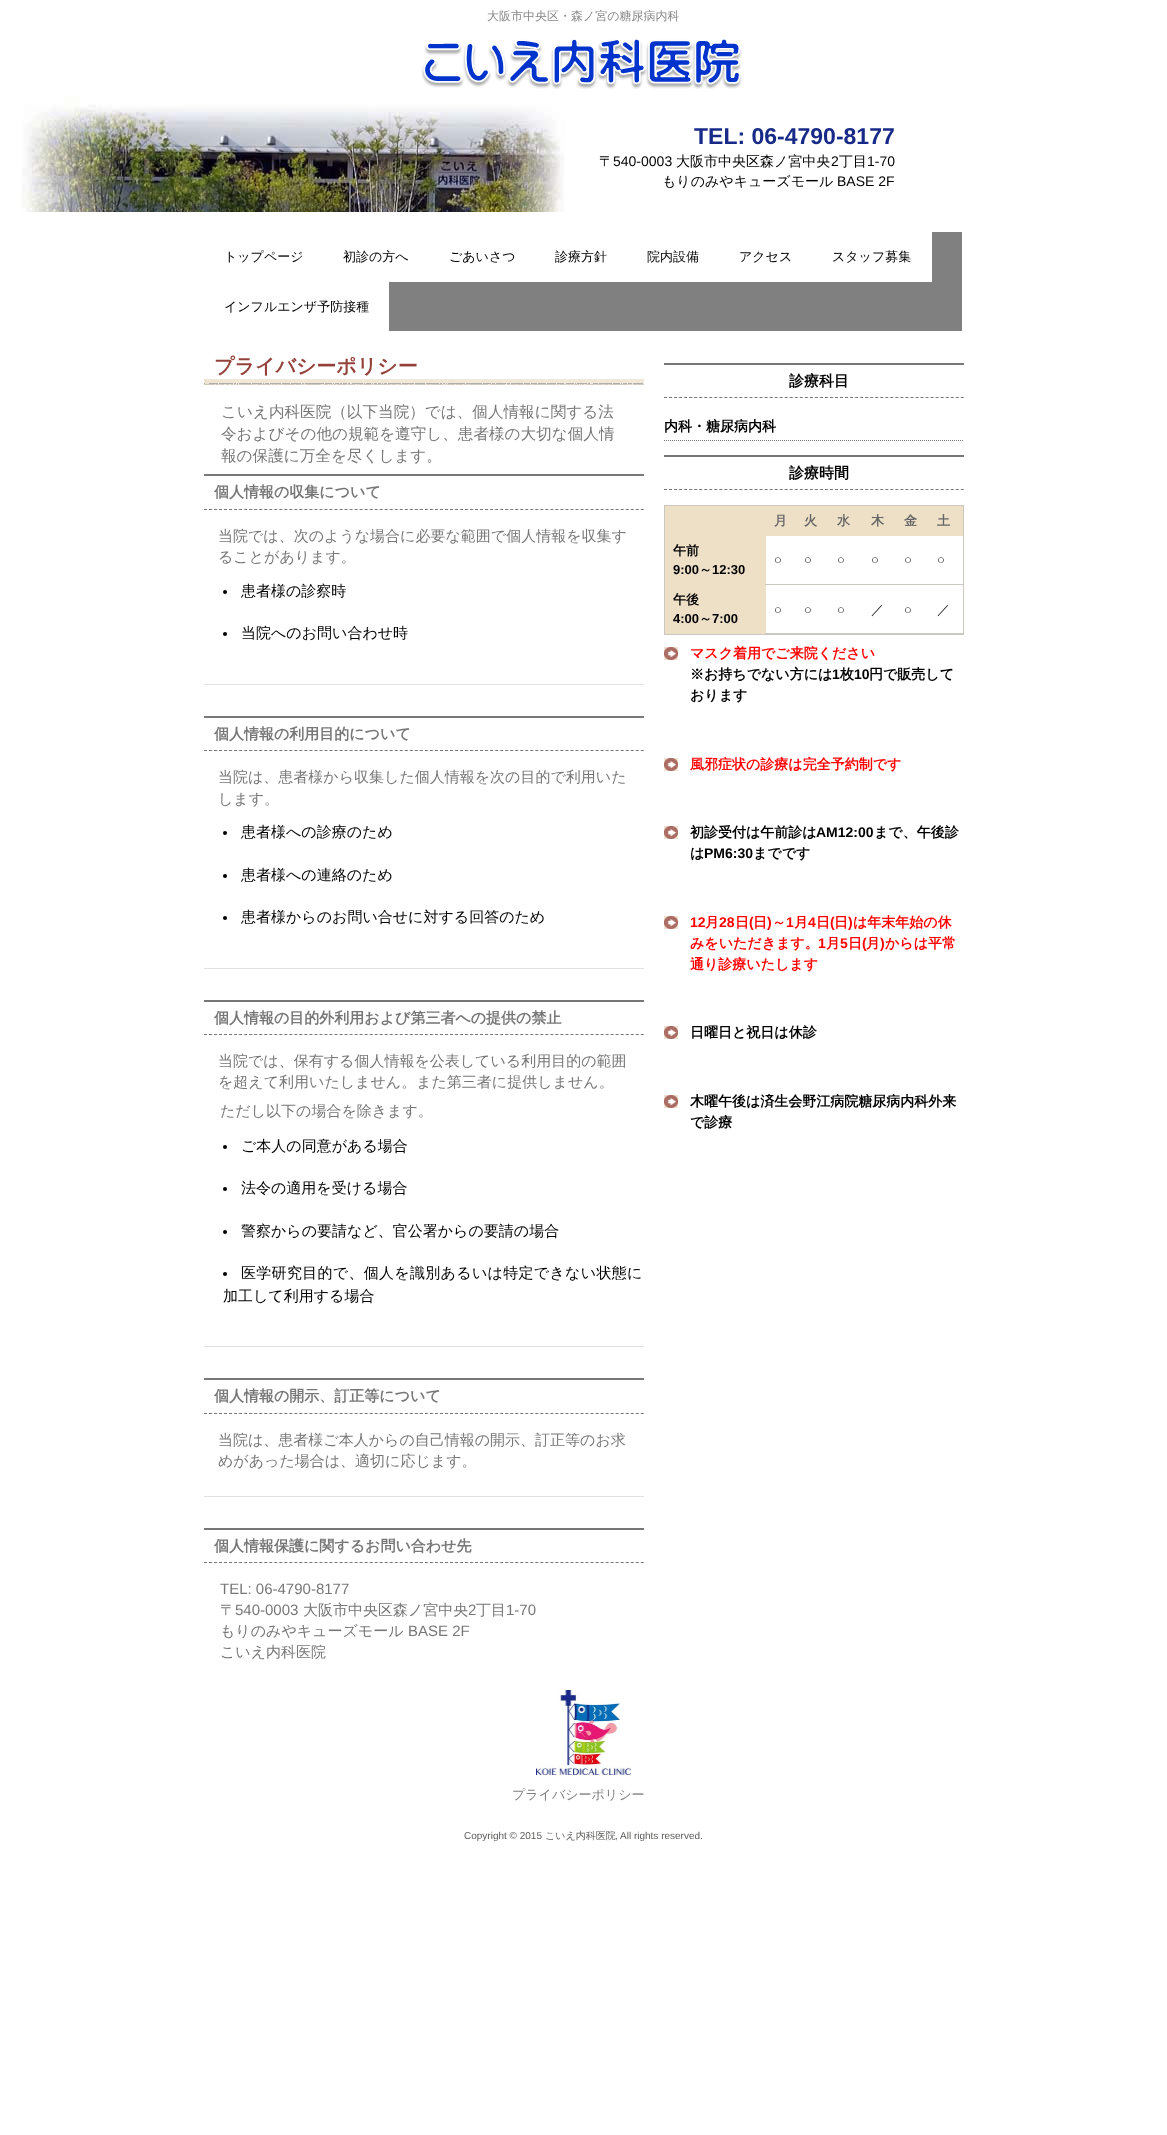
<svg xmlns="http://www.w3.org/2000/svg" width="1167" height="2135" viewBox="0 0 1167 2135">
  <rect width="100%" height="100%" fill="#ffffff"/>
  <image x="21" y="96" width="544" height="116" href="img1.png"/>
  <text x="487" y="20" font-family="WenQuanYi Zen Hei" font-size="12" font-weight="500" fill="#888888">大阪市中央区・森ノ宮の糖尿病内科</text>
  <image x="421" y="39" width="321" height="50" href="img2.png"/>
  <text x="694" y="144" font-family="Liberation Sans" font-size="23" font-weight="bold" fill="#172a87">TEL: 06-4790-8177</text>
  <text x="599" y="166" font-family="WenQuanYi Zen Hei" font-size="14" font-weight="500" fill="#000000">〒</text>
  <text x="613" y="166" font-family="Liberation Sans" font-size="14" fill="#000000">540-0003</text>
  <text x="676" y="166" font-family="WenQuanYi Zen Hei" font-size="14" font-weight="500" fill="#000000">大阪市中央区森ノ宮中央</text>
  <text x="831" y="166" font-family="Liberation Sans" font-size="14" fill="#000000">2</text>
  <text x="839" y="166" font-family="WenQuanYi Zen Hei" font-size="14" font-weight="500" fill="#000000">丁目</text>
  <text x="867" y="166" font-family="Liberation Sans" font-size="14" fill="#000000">1-70</text>
  <text x="662" y="186" font-family="WenQuanYi Zen Hei" font-size="14" font-weight="500" fill="#000000">もりのみやキューズモール</text>
  <text x="837" y="186" font-family="Liberation Sans" font-size="14" fill="#000000">BASE 2F</text>
  <rect x="389" y="232" width="573" height="99" fill="#808080"/>
  <text x="224" y="261" font-family="WenQuanYi Zen Hei" font-size="13" font-weight="500" fill="#000000">トップページ</text>
  <rect x="389" y="232" width="543" height="50" fill="#ffffff"/>
  <text x="343" y="261" font-family="WenQuanYi Zen Hei" font-size="13" font-weight="500" fill="#000000">初診の方へ</text>
  <text x="449" y="261" font-family="WenQuanYi Zen Hei" font-size="13" font-weight="500" fill="#000000">ごあいさつ</text>
  <text x="555" y="261" font-family="WenQuanYi Zen Hei" font-size="13" font-weight="500" fill="#000000">診療方針</text>
  <text x="647" y="261" font-family="WenQuanYi Zen Hei" font-size="13" font-weight="500" fill="#000000">院内設備</text>
  <text x="739" y="261" font-family="WenQuanYi Zen Hei" font-size="13" font-weight="500" fill="#000000">アクセス</text>
  <text x="832" y="261" font-family="WenQuanYi Zen Hei" font-size="13" font-weight="500" fill="#000000">スタッフ募集</text>
  <text x="224" y="311" font-family="WenQuanYi Zen Hei" font-size="13" font-weight="500" fill="#000000">インフルエンザ予防接種</text>
  <image x="204" y="379" width="440" height="6" href="img3.png"/>
  <text x="214" y="373" font-family="WenQuanYi Zen Hei" font-size="20" font-weight="bold" fill="#95423c">プライバシーポリシー</text>
  <text x="221" y="417" font-family="WenQuanYi Zen Hei" font-size="15.6" font-weight="500" fill="#777777">こいえ内科医院（以下当院）では、個人情報に関する法</text>
  <text x="221" y="439" font-family="WenQuanYi Zen Hei" font-size="15.6" font-weight="500" fill="#777777">令およびその他の規範を遵守し、患者様の大切な個人情</text>
  <text x="221" y="461" font-family="WenQuanYi Zen Hei" font-size="15.6" font-weight="500" fill="#777777">報の保護に万全を尽くします。</text>
  <rect x="204" y="474" width="440" height="2" fill="#777777"/>
  <path d="M204 509.5H644" fill="none" stroke="#777777" stroke-dasharray="3 2.02"/>
  <text x="214" y="497" font-family="WenQuanYi Zen Hei" font-size="15" font-weight="bold" fill="#777777">個人情報の収集について</text>
  <text x="218" y="541" font-family="WenQuanYi Zen Hei" font-size="15" font-weight="500" fill="#777777">当院では、次のような場合に必要な範囲で個人情報を収集す</text>
  <text x="218" y="562" font-family="WenQuanYi Zen Hei" font-size="15" font-weight="500" fill="#777777">ることがあります。</text>
  <circle cx="225" cy="592" r="2" fill="#000000"/>
  <text x="241" y="596" font-family="WenQuanYi Zen Hei" font-size="15" font-weight="500" fill="#000000">患者様の診察時</text>
  <circle cx="225" cy="634" r="2" fill="#000000"/>
  <text x="241" y="638" font-family="WenQuanYi Zen Hei" font-size="15" font-weight="500" fill="#000000">当院へのお問い合わせ時</text>
  <rect x="204" y="684" width="440" height="1" fill="#e2e2e2"/>
  <rect x="204" y="716" width="440" height="2" fill="#777777"/>
  <path d="M204 750.5H644" fill="none" stroke="#777777" stroke-dasharray="3 2.02"/>
  <text x="214" y="739" font-family="WenQuanYi Zen Hei" font-size="15" font-weight="bold" fill="#777777">個人情報の利用目的について</text>
  <text x="218" y="782" font-family="WenQuanYi Zen Hei" font-size="15" font-weight="500" fill="#777777">当院は、患者様から収集した個人情報を次の目的で利用いた</text>
  <text x="218" y="804" font-family="WenQuanYi Zen Hei" font-size="15" font-weight="500" fill="#777777">します。</text>
  <circle cx="225" cy="833" r="2" fill="#000000"/>
  <text x="241" y="837" font-family="WenQuanYi Zen Hei" font-size="15" font-weight="500" fill="#000000">患者様への診療のため</text>
  <circle cx="225" cy="876" r="2" fill="#000000"/>
  <text x="241" y="880" font-family="WenQuanYi Zen Hei" font-size="15" font-weight="500" fill="#000000">患者様への連絡のため</text>
  <circle cx="225" cy="918" r="2" fill="#000000"/>
  <text x="241" y="922" font-family="WenQuanYi Zen Hei" font-size="15" font-weight="500" fill="#000000">患者様からのお問い合せに対する回答のため</text>
  <rect x="204" y="968" width="440" height="1" fill="#e2e2e2"/>
  <rect x="204" y="1000" width="440" height="2" fill="#777777"/>
  <path d="M204 1034.5H644" fill="none" stroke="#777777" stroke-dasharray="3 2.02"/>
  <text x="214" y="1023" font-family="WenQuanYi Zen Hei" font-size="15" font-weight="bold" fill="#777777">個人情報の目的外利用および第三者への提供の禁止</text>
  <text x="218" y="1066" font-family="WenQuanYi Zen Hei" font-size="15" font-weight="500" fill="#777777">当院では、保有する個人情報を公表している利用目的の範囲</text>
  <text x="218" y="1087" font-family="WenQuanYi Zen Hei" font-size="15" font-weight="500" fill="#777777">を超えて利用いたしません。また第三者に提供しません。</text>
  <text x="220" y="1116" font-family="WenQuanYi Zen Hei" font-size="15" font-weight="500" fill="#777777">ただし以下の場合を除きます。</text>
  <circle cx="225" cy="1147" r="2" fill="#000000"/>
  <text x="241" y="1151" font-family="WenQuanYi Zen Hei" font-size="15" font-weight="500" fill="#000000">ご本人の同意がある場合</text>
  <circle cx="225" cy="1189" r="2" fill="#000000"/>
  <text x="241" y="1193" font-family="WenQuanYi Zen Hei" font-size="15" font-weight="500" fill="#000000">法令の適用を受ける場合</text>
  <circle cx="225" cy="1232" r="2" fill="#000000"/>
  <text x="241" y="1236" font-family="WenQuanYi Zen Hei" font-size="15" font-weight="500" fill="#000000">警察からの要請など、官公署からの要請の場合</text>
  <circle cx="225" cy="1274" r="2" fill="#000000"/>
  <text x="241" y="1278" font-family="WenQuanYi Zen Hei" font-size="15" font-weight="500" letter-spacing="0.3" fill="#000000">医学研究目的で、個人を識別あるいは特定できない状態に</text>
  <text x="223" y="1301" font-family="WenQuanYi Zen Hei" font-size="15" font-weight="500" fill="#000000">加工して利用する場合</text>
  <rect x="204" y="1346" width="440" height="1" fill="#e2e2e2"/>
  <rect x="204" y="1378" width="440" height="2" fill="#777777"/>
  <path d="M204 1413.5H644" fill="none" stroke="#777777" stroke-dasharray="3 2.02"/>
  <text x="214" y="1401" font-family="WenQuanYi Zen Hei" font-size="15" font-weight="bold" fill="#777777">個人情報の開示、訂正等について</text>
  <text x="218" y="1445" font-family="WenQuanYi Zen Hei" font-size="15" font-weight="500" fill="#777777">当院は、患者様ご本人からの自己情報の開示、訂正等のお求</text>
  <text x="218" y="1466" font-family="WenQuanYi Zen Hei" font-size="15" font-weight="500" fill="#777777">めがあった場合は、適切に応じます。</text>
  <rect x="204" y="1496" width="440" height="1" fill="#e2e2e2"/>
  <rect x="204" y="1528" width="440" height="2" fill="#777777"/>
  <path d="M204 1562.5H644" fill="none" stroke="#777777" stroke-dasharray="3 2.02"/>
  <text x="214" y="1551" font-family="WenQuanYi Zen Hei" font-size="15" font-weight="bold" fill="#777777">個人情報保護に関するお問い合わせ先</text>
  <text x="220" y="1594" font-family="Liberation Sans" font-size="15" fill="#777777">TEL: 06-4790-8177</text>
  <text x="220" y="1615" font-family="WenQuanYi Zen Hei" font-size="15" font-weight="500" fill="#777777">〒</text>
  <text x="235" y="1615" font-family="Liberation Sans" font-size="15" fill="#777777">540-0003</text>
  <text x="303" y="1615" font-family="WenQuanYi Zen Hei" font-size="15" font-weight="500" fill="#777777">大阪市中央区森ノ宮中央</text>
  <text x="468" y="1615" font-family="Liberation Sans" font-size="15" fill="#777777">2</text>
  <text x="476" y="1615" font-family="WenQuanYi Zen Hei" font-size="15" font-weight="500" fill="#777777">丁目</text>
  <text x="506" y="1615" font-family="Liberation Sans" font-size="15" fill="#777777">1-70</text>
  <text x="220" y="1636" font-family="WenQuanYi Zen Hei" font-size="15" font-weight="500" fill="#777777">もりのみやキューズモール</text>
  <text x="408" y="1636" font-family="Liberation Sans" font-size="15" fill="#777777">BASE 2F</text>
  <text x="220" y="1657" font-family="WenQuanYi Zen Hei" font-size="15" font-weight="500" fill="#777777">こいえ内科医院</text>
  <rect x="664" y="363" width="300" height="2" fill="#777777"/>
  <path d="M664 397.5H964" fill="none" stroke="#777777" stroke-dasharray="3 2.03"/>
  <text x="789" y="386" font-family="WenQuanYi Zen Hei" font-size="15" font-weight="bold" fill="#000000">診療科目</text>
  <path d="M664 440.5H964" fill="none" stroke="#777777" stroke-dasharray="1 1"/>
  <text x="664" y="431" font-family="WenQuanYi Zen Hei" font-size="14" font-weight="bold" fill="#000000">内科・糖尿病内科</text>
  <rect x="664" y="455" width="300" height="2" fill="#777777"/>
  <path d="M664 489.5H964" fill="none" stroke="#777777" stroke-dasharray="3 2.03"/>
  <text x="789" y="478" font-family="WenQuanYi Zen Hei" font-size="15" font-weight="bold" fill="#000000">診療時間</text>
  <rect x="664" y="505" width="300" height="1" fill="#cbc8c1"/>
  <rect x="963" y="505" width="1" height="130" fill="#cbc8c1"/>
  <rect x="664" y="634" width="300" height="1" fill="#cbc8c1"/>
  <rect x="664" y="505" width="1" height="130" fill="#cbc8c1"/>
  <rect x="665" y="506" width="298" height="30" fill="#eedfc7"/>
  <text x="774" y="525" font-family="WenQuanYi Zen Hei" font-size="13" font-weight="bold" fill="#666666">月</text>
  <text x="804" y="525" font-family="WenQuanYi Zen Hei" font-size="13" font-weight="bold" fill="#666666">火</text>
  <text x="837" y="525" font-family="WenQuanYi Zen Hei" font-size="13" font-weight="bold" fill="#666666">水</text>
  <text x="871" y="525" font-family="WenQuanYi Zen Hei" font-size="13" font-weight="bold" fill="#666666">木</text>
  <text x="904" y="525" font-family="WenQuanYi Zen Hei" font-size="13" font-weight="bold" fill="#666666">金</text>
  <text x="937" y="525" font-family="WenQuanYi Zen Hei" font-size="13" font-weight="bold" fill="#666666">土</text>
  <rect x="665" y="536" width="101" height="98" fill="#eedfc7"/>
  <text x="673" y="555" font-family="WenQuanYi Zen Hei" font-size="13" font-weight="bold" fill="#000000">午前</text>
  <text x="673" y="574" font-family="Liberation Sans" font-size="13" font-weight="bold" fill="#000000">9:00</text>
  <text x="699" y="574" font-family="WenQuanYi Zen Hei" font-size="13" font-weight="bold" fill="#000000">～</text>
  <text x="712" y="574" font-family="Liberation Sans" font-size="13" font-weight="bold" fill="#000000">12:30</text>
  <text x="774" y="564" font-family="Liberation Sans" font-size="13" fill="#000000">○</text>
  <text x="804" y="564" font-family="Liberation Sans" font-size="13" fill="#000000">○</text>
  <text x="837" y="564" font-family="Liberation Sans" font-size="13" fill="#000000">○</text>
  <text x="871" y="564" font-family="Liberation Sans" font-size="13" fill="#000000">○</text>
  <text x="904" y="564" font-family="Liberation Sans" font-size="13" fill="#000000">○</text>
  <rect x="765" y="584" width="199" height="1" fill="#cbc8c1"/>
  <text x="937" y="564" font-family="Liberation Sans" font-size="13" fill="#000000">○</text>
  <text x="673" y="604" font-family="WenQuanYi Zen Hei" font-size="13" font-weight="bold" fill="#000000">午後</text>
  <text x="673" y="623" font-family="Liberation Sans" font-size="13" font-weight="bold" fill="#000000">4:00</text>
  <text x="699" y="623" font-family="WenQuanYi Zen Hei" font-size="13" font-weight="bold" fill="#000000">～</text>
  <text x="712" y="623" font-family="Liberation Sans" font-size="13" font-weight="bold" fill="#000000">7:00</text>
  <text x="774" y="614" font-family="Liberation Sans" font-size="13" fill="#000000">○</text>
  <text x="804" y="614" font-family="Liberation Sans" font-size="13" fill="#000000">○</text>
  <text x="837" y="614" font-family="Liberation Sans" font-size="13" fill="#000000">○</text>
  <text x="871" y="614" font-family="WenQuanYi Zen Hei" font-size="13" font-weight="500" fill="#000000">／</text>
  <text x="904" y="614" font-family="Liberation Sans" font-size="13" fill="#000000">○</text>
  <rect x="765" y="633" width="199" height="1" fill="#cbc8c1"/>
  <text x="937" y="614" font-family="WenQuanYi Zen Hei" font-size="13" font-weight="500" fill="#000000">／</text>
  <image x="664" y="647" width="14" height="13" href="img4.png"/>
  <text x="690" y="658" font-family="WenQuanYi Zen Hei" font-size="14" font-weight="bold" fill="#ff0000">マスク着用でご来院ください</text>
  <text x="690" y="679" font-family="WenQuanYi Zen Hei" font-size="14" font-weight="bold" fill="#000000">※お持ちでない方には</text>
  <text x="832" y="679" font-family="Liberation Sans" font-size="14" font-weight="bold" fill="#000000">1</text>
  <text x="840" y="679" font-family="WenQuanYi Zen Hei" font-size="14" font-weight="bold" fill="#000000">枚</text>
  <text x="854" y="679" font-family="Liberation Sans" font-size="14" font-weight="bold" fill="#000000">10</text>
  <text x="869" y="679" font-family="WenQuanYi Zen Hei" font-size="14" font-weight="bold" fill="#000000">円で販売して</text>
  <text x="690" y="700" font-family="WenQuanYi Zen Hei" font-size="14" font-weight="bold" fill="#000000">おります</text>
  <image x="664" y="758" width="14" height="13" href="img4.png"/>
  <text x="690" y="769" font-family="WenQuanYi Zen Hei" font-size="14" font-weight="bold" fill="#ff0000">風邪症状の診療は完全予約制です</text>
  <image x="664" y="826" width="14" height="13" href="img4.png"/>
  <text x="690" y="837" font-family="WenQuanYi Zen Hei" font-size="14" font-weight="bold" fill="#000000">初診受付は午前診は</text>
  <text x="816" y="837" font-family="Liberation Sans" font-size="14" font-weight="bold" fill="#000000">AM12:00</text>
  <text x="874" y="837" font-family="WenQuanYi Zen Hei" font-size="14" font-weight="bold" fill="#000000">まで、午後診</text>
  <text x="690" y="858" font-family="WenQuanYi Zen Hei" font-size="14" font-weight="bold" fill="#000000">は</text>
  <text x="704" y="858" font-family="Liberation Sans" font-size="14" font-weight="bold" fill="#000000">PM6:30</text>
  <text x="753" y="858" font-family="WenQuanYi Zen Hei" font-size="14" font-weight="bold" fill="#000000">までです</text>
  <image x="664" y="916" width="14" height="13" href="img4.png"/>
  <text x="690" y="927" font-family="Liberation Sans" font-size="14" font-weight="bold" fill="#ff0000">12</text>
  <text x="705" y="927" font-family="WenQuanYi Zen Hei" font-size="14" font-weight="bold" fill="#ff0000">月</text>
  <text x="719" y="927" font-family="Liberation Sans" font-size="14" font-weight="bold" fill="#ff0000">28</text>
  <text x="735" y="927" font-family="WenQuanYi Zen Hei" font-size="14" font-weight="bold" fill="#ff0000">日</text>
  <text x="749" y="927" font-family="Liberation Sans" font-size="14" font-weight="bold" fill="#ff0000">(</text>
  <text x="753" y="927" font-family="WenQuanYi Zen Hei" font-size="14" font-weight="bold" fill="#ff0000">日</text>
  <text x="767" y="927" font-family="Liberation Sans" font-size="14" font-weight="bold" fill="#ff0000">)</text>
  <text x="772" y="927" font-family="WenQuanYi Zen Hei" font-size="14" font-weight="bold" fill="#ff0000">～</text>
  <text x="786" y="927" font-family="Liberation Sans" font-size="14" font-weight="bold" fill="#ff0000">1</text>
  <text x="794" y="927" font-family="WenQuanYi Zen Hei" font-size="14" font-weight="bold" fill="#ff0000">月</text>
  <text x="808" y="927" font-family="Liberation Sans" font-size="14" font-weight="bold" fill="#ff0000">4</text>
  <text x="816" y="927" font-family="WenQuanYi Zen Hei" font-size="14" font-weight="bold" fill="#ff0000">日</text>
  <text x="830" y="927" font-family="Liberation Sans" font-size="14" font-weight="bold" fill="#ff0000">(</text>
  <text x="834" y="927" font-family="WenQuanYi Zen Hei" font-size="14" font-weight="bold" fill="#ff0000">日</text>
  <text x="848" y="927" font-family="Liberation Sans" font-size="14" font-weight="bold" fill="#ff0000">)</text>
  <text x="853" y="927" font-family="WenQuanYi Zen Hei" font-size="14" font-weight="bold" fill="#ff0000">は年末年始の休</text>
  <text x="690" y="948" font-family="WenQuanYi Zen Hei" font-size="14" font-weight="bold" fill="#ff0000">みをいただきます。</text>
  <text x="818" y="948" font-family="Liberation Sans" font-size="14" font-weight="bold" fill="#ff0000">1</text>
  <text x="826" y="948" font-family="WenQuanYi Zen Hei" font-size="14" font-weight="bold" fill="#ff0000">月</text>
  <text x="840" y="948" font-family="Liberation Sans" font-size="14" font-weight="bold" fill="#ff0000">5</text>
  <text x="848" y="948" font-family="WenQuanYi Zen Hei" font-size="14" font-weight="bold" fill="#ff0000">日</text>
  <text x="862" y="948" font-family="Liberation Sans" font-size="14" font-weight="bold" fill="#ff0000">(</text>
  <text x="866" y="948" font-family="WenQuanYi Zen Hei" font-size="14" font-weight="bold" fill="#ff0000">月</text>
  <text x="880" y="948" font-family="Liberation Sans" font-size="14" font-weight="bold" fill="#ff0000">)</text>
  <text x="885" y="948" font-family="WenQuanYi Zen Hei" font-size="14" font-weight="bold" fill="#ff0000">からは平常</text>
  <text x="690" y="969" font-family="WenQuanYi Zen Hei" font-size="14" font-weight="bold" fill="#ff0000">通り診療いたします</text>
  <image x="664" y="1026" width="14" height="13" href="img4.png"/>
  <text x="690" y="1037" font-family="WenQuanYi Zen Hei" font-size="14" font-weight="bold" fill="#000000">日曜日と祝日は休診</text>
  <image x="664" y="1095" width="14" height="13" href="img4.png"/>
  <text x="690" y="1106" font-family="WenQuanYi Zen Hei" font-size="14" font-weight="bold" fill="#000000">木曜午後は済生会野江病院糖尿病内科外来</text>
  <text x="690" y="1127" font-family="WenQuanYi Zen Hei" font-size="14" font-weight="bold" fill="#000000">で診療</text>
  <image x="536" y="1690" width="95" height="85" href="img5.png"/>
  <text x="512" y="1799" font-family="WenQuanYi Zen Hei" font-size="13" font-weight="500" fill="#808080">プライバシーポリシー</text>
  <text x="464" y="1839" font-family="Liberation Sans" font-size="10" fill="#5b5a59">Copyright © 2015</text>
  <text x="545" y="1839" font-family="WenQuanYi Zen Hei" font-size="10" font-weight="500" fill="#5b5a59">こいえ内科医院</text>
  <text x="615" y="1839" font-family="Liberation Sans" font-size="10" fill="#5b5a59">, All rights reserved.</text>
</svg>
